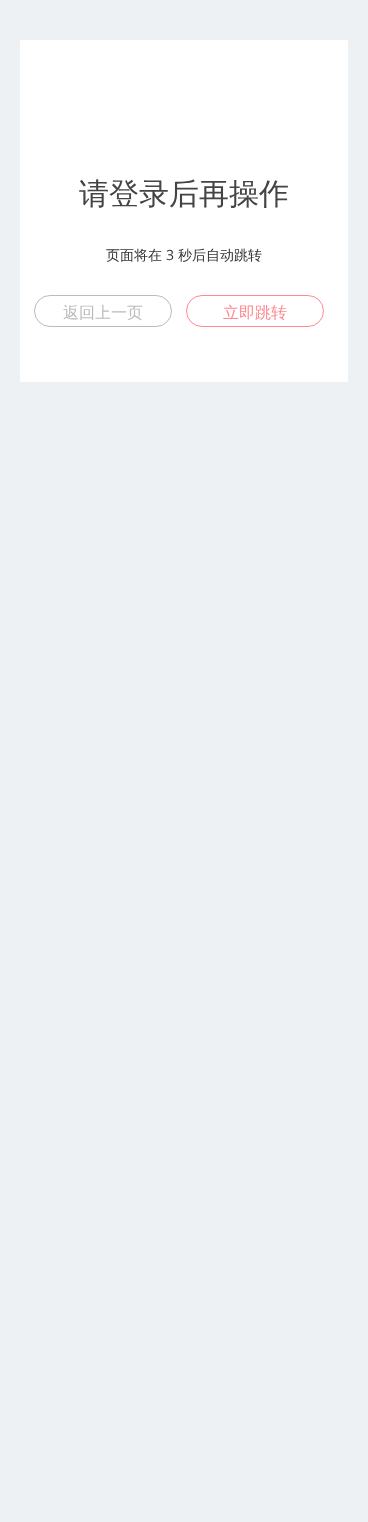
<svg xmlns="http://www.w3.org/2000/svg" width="368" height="1522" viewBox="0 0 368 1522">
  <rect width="100%" height="100%" fill="#edf1f4"/>
  <rect x="20" y="40" width="328" height="342" rx="2" fill="#ffffff"/>
  <text x="79" y="204" font-family="WenQuanYi Zen Hei" font-size="30" font-weight="500" fill="#444444">请登录后再操作</text>
  <text x="106" y="260" font-family="WenQuanYi Zen Hei" font-size="14" font-weight="500" fill="#333333">页面将在</text>
  <text x="166" y="260" font-family="Open Sans" font-size="14" fill="#333333">3</text>
  <text x="178" y="260" font-family="WenQuanYi Zen Hei" font-size="14" font-weight="500" fill="#333333">秒后自动跳转</text>
  <rect x="34.5" y="295.5" width="137" height="31" rx="15.5" fill="none" stroke="#bbbbbb"/>
  <text x="63" y="318" font-family="WenQuanYi Zen Hei" font-size="16" font-weight="500" fill="#bbbbbb">返回上一页</text>
  <rect x="186.5" y="295.5" width="137" height="31" rx="15.5" fill="none" stroke="#ff8992"/>
  <text x="223" y="318" font-family="WenQuanYi Zen Hei" font-size="16" font-weight="500" fill="#ff8992">立即跳转</text>
</svg>
